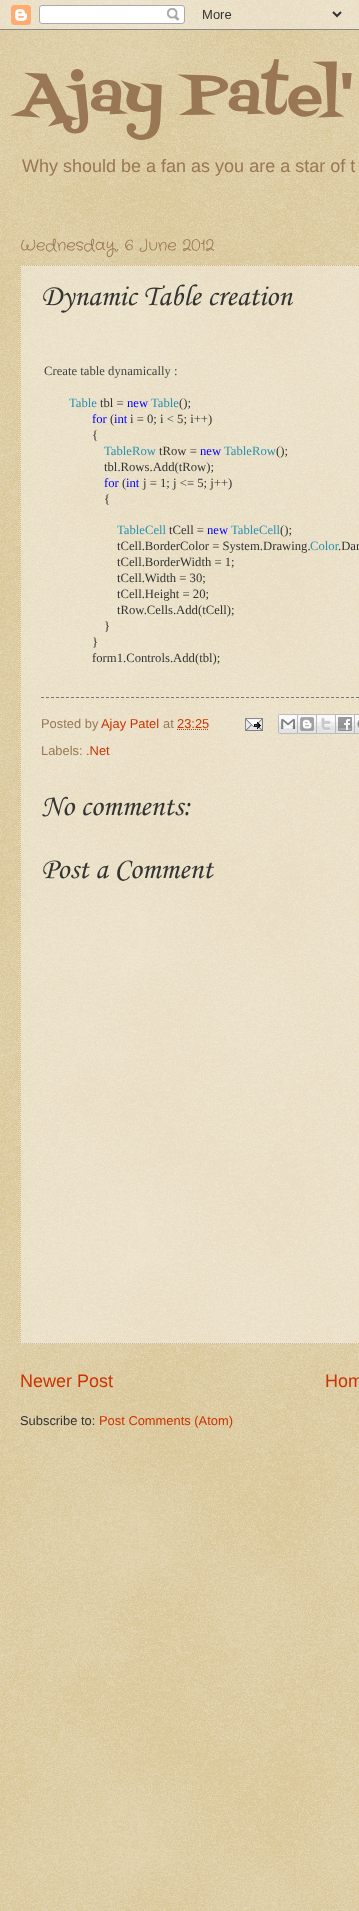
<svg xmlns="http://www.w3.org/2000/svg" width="359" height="1911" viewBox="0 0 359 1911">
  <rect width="100%" height="100%" fill="#c0a154"/>
  <image x="0" y="0" width="359" height="1911" href="img1.png"/>
  <image x="0" y="0" width="359" height="30" href="img2.png"/>
  <text x="20" y="113" font-family="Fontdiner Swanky" font-size="60" fill="#997755">Ajay Patel'</text>
  <text x="22" y="172" font-family="Liberation Sans" font-size="18" fill="#997755">Why should be a fan as you are a star of t</text>
  <text x="20" y="250" font-family="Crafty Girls" font-size="16" fill="#997755">Wednesday, 6 June 2012</text>
  <rect x="20" y="265" width="339" height="1079" fill="#ffffff" fill-opacity="0.4"/>
  <path d="M20 265.5H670" fill="none" stroke="#ccbb99" stroke-dasharray="1 1"/>
  <path d="M20 1343.5H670" fill="none" stroke="#ccbb99" stroke-dasharray="1 1"/>
  <path d="M20.5 265V1344" fill="none" stroke="#ccbb99" stroke-dasharray="1 1"/>
  <text x="41" y="305" font-family="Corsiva" font-size="30" fill="#333333">Dynamic Table creation</text>
  <text x="44" y="375" font-family="Liberation Serif" font-size="12.7" fill="#444444">Create table dynamically :</text>
  <text x="69" y="407" font-family="Liberation Serif" font-size="12.7" fill="#2b91af">Table</text>
  <text x="100" y="407" font-family="Liberation Serif" font-size="12.7" fill="#333333">tbl =</text>
  <text x="127" y="407" font-family="Liberation Serif" font-size="12.7" fill="#0000ff">new</text>
  <text x="151" y="407" font-family="Liberation Serif" font-size="12.7" fill="#2b91af">Table</text>
  <text x="179" y="407" font-family="Liberation Serif" font-size="12.7" fill="#333333">();</text>
  <text x="92" y="423" font-family="Liberation Serif" font-size="12.7" fill="#0000ff">for</text>
  <text x="110" y="423" font-family="Liberation Serif" font-size="12.7" fill="#333333">(</text>
  <text x="114" y="423" font-family="Liberation Serif" font-size="12.7" fill="#0000ff">int</text>
  <text x="130" y="423" font-family="Liberation Serif" font-size="12.7" fill="#333333">i = 0; i &lt; 5; i++)</text>
  <text x="92" y="439" font-family="Liberation Serif" font-size="12.7" fill="#333333">{</text>
  <text x="104" y="455" font-family="Liberation Serif" font-size="12.7" fill="#2b91af">TableRow</text>
  <text x="159" y="455" font-family="Liberation Serif" font-size="12.7" fill="#333333">tRow =</text>
  <text x="200" y="455" font-family="Liberation Serif" font-size="12.7" fill="#0000ff">new</text>
  <text x="224" y="455" font-family="Liberation Serif" font-size="12.7" fill="#2b91af">TableRow</text>
  <text x="276" y="455" font-family="Liberation Serif" font-size="12.7" fill="#333333">();</text>
  <text x="104" y="471" font-family="Liberation Serif" font-size="12.7" fill="#333333">tbl.Rows.Add(tRow);</text>
  <text x="104" y="487" font-family="Liberation Serif" font-size="12.7" fill="#0000ff">for</text>
  <text x="122" y="487" font-family="Liberation Serif" font-size="12.7" fill="#333333">(</text>
  <text x="126" y="487" font-family="Liberation Serif" font-size="12.7" fill="#0000ff">int</text>
  <text x="143" y="487" font-family="Liberation Serif" font-size="12.7" fill="#333333">j = 1; j &lt;= 5; j++)</text>
  <text x="104" y="503" font-family="Liberation Serif" font-size="12.7" fill="#333333">{</text>
  <text x="117" y="534" font-family="Liberation Serif" font-size="12.7" fill="#2b91af">TableCell</text>
  <text x="169" y="534" font-family="Liberation Serif" font-size="12.7" fill="#333333">tCell =</text>
  <text x="207" y="534" font-family="Liberation Serif" font-size="12.7" fill="#0000ff">new</text>
  <text x="231" y="534" font-family="Liberation Serif" font-size="12.7" fill="#2b91af">TableCell</text>
  <text x="280" y="534" font-family="Liberation Serif" font-size="12.7" fill="#333333">();</text>
  <text x="117" y="550" font-family="Liberation Serif" font-size="12.7" fill="#333333">tCell.BorderColor = System.Drawing.</text>
  <text x="310" y="550" font-family="Liberation Serif" font-size="12.7" fill="#2b91af">Color</text>
  <text x="338" y="550" font-family="Liberation Serif" font-size="12.7" fill="#333333">.Dar</text>
  <text x="117" y="566" font-family="Liberation Serif" font-size="12.7" fill="#333333">tCell.BorderWidth = 1;</text>
  <text x="117" y="582" font-family="Liberation Serif" font-size="12.7" fill="#333333">tCell.Width = 30;</text>
  <text x="117" y="598" font-family="Liberation Serif" font-size="12.7" fill="#333333">tCell.Height = 20;</text>
  <text x="117" y="614" font-family="Liberation Serif" font-size="12.7" fill="#333333">tRow.Cells.Add(tCell);</text>
  <text x="104" y="630" font-family="Liberation Serif" font-size="12.7" fill="#333333">}</text>
  <text x="92" y="646" font-family="Liberation Serif" font-size="12.7" fill="#333333">}</text>
  <text x="92" y="662" font-family="Liberation Serif" font-size="12.7" fill="#333333">form1.Controls.Add(tbl);</text>
  <path d="M41 697.5H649" fill="none" stroke="#777777" stroke-dasharray="3 2"/>
  <text x="41" y="728" font-family="Liberation Sans" font-size="12.9" fill="#997755">Posted by</text>
  <text x="101" y="728" font-family="Liberation Sans" font-size="12.9" fill="#cc3300">Ajay Patel</text>
  <text x="163" y="728" font-family="Liberation Sans" font-size="12.9" fill="#997755">at</text>
  <text x="177" y="728" font-family="Liberation Sans" font-size="12.9" fill="#cc3300">23:25</text>
  <path d="M177 729.5H209" fill="none" stroke="#cc3300" stroke-dasharray="1 1"/>
  <image x="245" y="718" width="18" height="13" href="img3.png"/>
  <image x="278" y="714" width="20" height="20" href="img4.png"/>
  <image x="298" y="714" width="19" height="20" href="img5.png"/>
  <image x="317" y="714" width="19" height="20" href="img6.png"/>
  <image x="336" y="714" width="19" height="20" href="img7.png"/>
  <image x="355" y="714" width="4" height="20" href="img8.png"/>
  <text x="41" y="755" font-family="Liberation Sans" font-size="12.9" fill="#997755">Labels:</text>
  <text x="86" y="755" font-family="Liberation Sans" font-size="12.9" fill="#cc3300">.Net</text>
  <text x="41" y="815" font-family="Corsiva" font-size="30" fill="#333333">No comments:</text>
  <text x="41" y="878" font-family="Corsiva" font-size="30" fill="#333333">Post a Comment</text>
  <text x="20" y="1387" font-family="Liberation Sans" font-size="18" fill="#cc3300">Newer Post</text>
  <text x="325" y="1387" font-family="Liberation Sans" font-size="18" fill="#cc3300">Hom</text>
  <text x="20" y="1425" font-family="Liberation Sans" font-size="12.9" fill="#333333">Subscribe to:</text>
  <text x="99" y="1425" font-family="Liberation Sans" font-size="12.9" fill="#cc3300">Post Comments (Atom)</text>
</svg>
